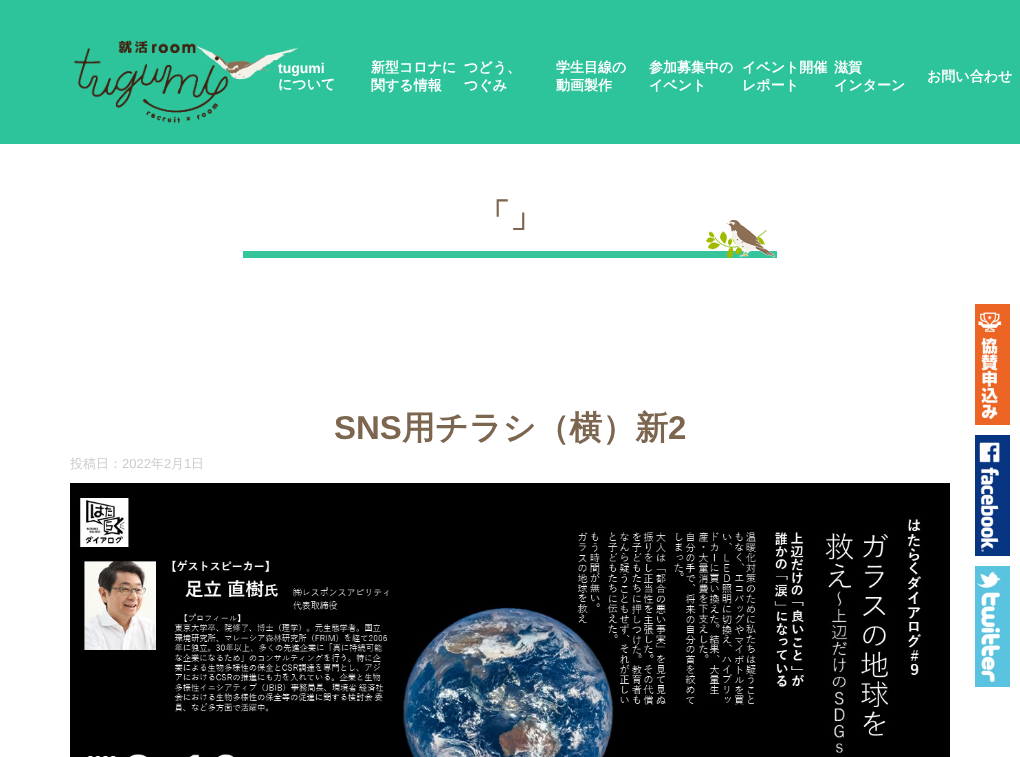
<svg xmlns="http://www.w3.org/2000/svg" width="1020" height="757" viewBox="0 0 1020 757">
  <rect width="100%" height="100%" fill="#ffffff"/>
  <rect x="0" y="0" width="1020" height="144" fill="#2ec49b"/>
  <image x="74" y="40" width="225" height="84" href="img1.png"/>
  <text x="278" y="73" font-family="Liberation Sans" font-size="14" font-weight="bold" fill="#ffffff">tugumi</text>
  <text x="278" y="89" font-family="WenQuanYi Zen Hei" font-size="14" font-weight="bold" fill="#ffffff">について</text>
  <text x="371" y="72" font-family="WenQuanYi Zen Hei" font-size="14" font-weight="bold" fill="#ffffff">新型コロナに</text>
  <text x="371" y="90" font-family="WenQuanYi Zen Hei" font-size="14" font-weight="bold" fill="#ffffff">関する情報</text>
  <text x="464" y="72" font-family="WenQuanYi Zen Hei" font-size="14" font-weight="bold" fill="#ffffff">つどう、</text>
  <text x="464" y="90" font-family="WenQuanYi Zen Hei" font-size="14" font-weight="bold" fill="#ffffff">つぐみ</text>
  <text x="556" y="72" font-family="WenQuanYi Zen Hei" font-size="14" font-weight="bold" fill="#ffffff">学生目線の</text>
  <text x="556" y="90" font-family="WenQuanYi Zen Hei" font-size="14" font-weight="bold" fill="#ffffff">動画製作</text>
  <text x="649" y="72" font-family="WenQuanYi Zen Hei" font-size="14" font-weight="bold" fill="#ffffff">参加募集中の</text>
  <text x="649" y="90" font-family="WenQuanYi Zen Hei" font-size="14" font-weight="bold" fill="#ffffff">イベント</text>
  <text x="742" y="72" font-family="WenQuanYi Zen Hei" font-size="14" font-weight="bold" fill="#ffffff">イベント開催</text>
  <text x="742" y="90" font-family="WenQuanYi Zen Hei" font-size="14" font-weight="bold" fill="#ffffff">レポート</text>
  <text x="834" y="72" font-family="WenQuanYi Zen Hei" font-size="14" font-weight="bold" fill="#ffffff">滋賀</text>
  <text x="834" y="90" font-family="WenQuanYi Zen Hei" font-size="14" font-weight="bold" fill="#ffffff">インターン</text>
  <text x="927" y="81" font-family="WenQuanYi Zen Hei" font-size="14" font-weight="bold" fill="#ffffff">お問い合わせ</text>
  <image x="243" y="220" width="534" height="38" href="img2.png"/>
  <text x="477" y="227" font-family="WenQuanYi Zen Hei" font-size="33" font-weight="bold" fill="#7d6650">「」</text>
  <text x="334" y="439" font-family="Liberation Sans" font-size="33" font-weight="bold" fill="#7d6650">SNS</text>
  <text x="402" y="439" font-family="WenQuanYi Zen Hei" font-size="33" font-weight="bold" fill="#7d6650">用チラシ（横）新</text>
  <text x="668" y="439" font-family="Liberation Sans" font-size="33" font-weight="bold" fill="#7d6650">2</text>
  <text x="70" y="468" font-family="WenQuanYi Zen Hei" font-size="13" font-weight="500" fill="#cccccc">投稿日：</text>
  <text x="122" y="468" font-family="Liberation Sans" font-size="13" fill="#cccccc">2022</text>
  <text x="151" y="468" font-family="WenQuanYi Zen Hei" font-size="13" font-weight="500" fill="#cccccc">年</text>
  <text x="164" y="468" font-family="Liberation Sans" font-size="13" fill="#cccccc">2</text>
  <text x="171" y="468" font-family="WenQuanYi Zen Hei" font-size="13" font-weight="500" fill="#cccccc">月</text>
  <text x="184" y="468" font-family="Liberation Sans" font-size="13" fill="#cccccc">1</text>
  <text x="191" y="468" font-family="WenQuanYi Zen Hei" font-size="13" font-weight="500" fill="#cccccc">日</text>
  <image x="70" y="483" width="880" height="274" href="img3.png"/>
  <image x="975" y="304" width="35" height="121" href="img4.png"/>
  <image x="975" y="435" width="35" height="121" href="img5.png"/>
  <image x="975" y="566" width="35" height="121" href="img6.png"/>
</svg>
